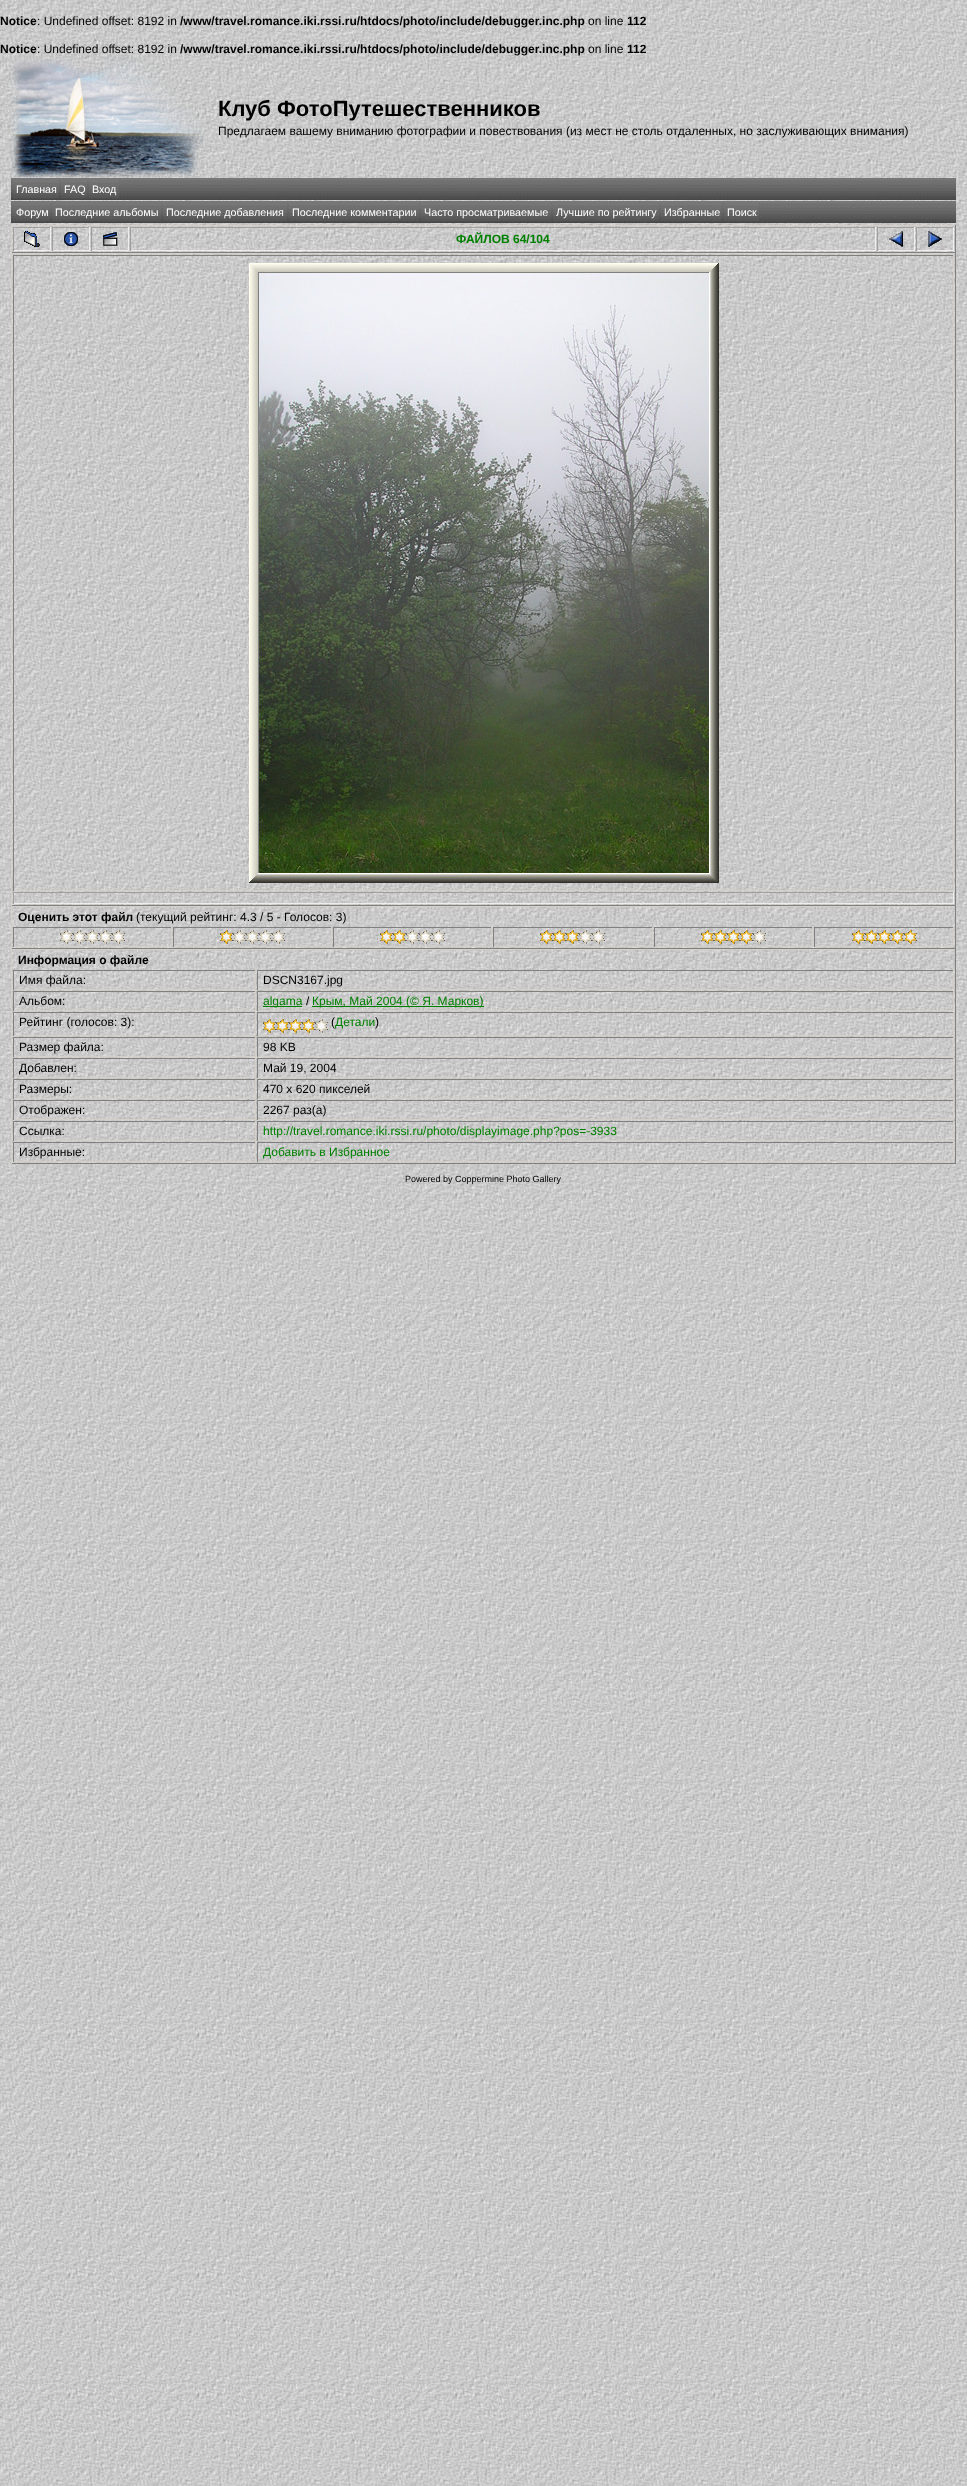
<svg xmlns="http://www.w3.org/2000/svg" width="967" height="2486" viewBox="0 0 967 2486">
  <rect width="100%" height="100%" fill="#ffffff"/>
  <image x="0" y="0" width="967" height="2486" href="img1.png"/>
  <text x="0" y="25" font-family="Liberation Sans" font-size="12" font-weight="bold" fill="#000000">Notice</text>
  <text x="37" y="25" font-family="Liberation Sans" font-size="12" fill="#000000">: Undefined offset: 8192 in</text>
  <text x="180" y="25" font-family="Liberation Sans" font-size="12" font-weight="bold" fill="#000000">/www/travel.romance.iki.rssi.ru/htdocs/photo/include/debugger.inc.php</text>
  <text x="588" y="25" font-family="Liberation Sans" font-size="12" fill="#000000">on line</text>
  <text x="627" y="25" font-family="Liberation Sans" font-size="12" font-weight="bold" fill="#000000">112</text>
  <text x="0" y="53" font-family="Liberation Sans" font-size="12" font-weight="bold" fill="#000000">Notice</text>
  <text x="37" y="53" font-family="Liberation Sans" font-size="12" fill="#000000">: Undefined offset: 8192 in</text>
  <text x="180" y="53" font-family="Liberation Sans" font-size="12" font-weight="bold" fill="#000000">/www/travel.romance.iki.rssi.ru/htdocs/photo/include/debugger.inc.php</text>
  <text x="588" y="53" font-family="Liberation Sans" font-size="12" fill="#000000">on line</text>
  <text x="627" y="53" font-family="Liberation Sans" font-size="12" font-weight="bold" fill="#000000">112</text>
  <image x="11" y="57" width="193" height="120" href="img2.png"/>
  <text x="218" y="116" font-family="Liberation Sans" font-size="22" font-weight="bold" fill="#000000">Клуб ФотоПутешественников</text>
  <text x="218" y="135" font-family="Liberation Sans" font-size="12" fill="#000000">Предлагаем вашему вниманию фотографии и повествования (из мест не столь отдаленных, но заслуживающих внимания)</text>
  <image x="11" y="178" width="945" height="22" href="img3.png"/>
  <image x="13" y="180" width="46" height="18" href="img4.png"/>
  <text x="16" y="193" font-family="Liberation Sans" font-size="10.75" fill="#ffffff">Главная</text>
  <image x="61" y="180" width="26" height="18" href="img5.png"/>
  <text x="64" y="193" font-family="Liberation Sans" font-size="10.75" fill="#ffffff">FAQ</text>
  <image x="89" y="180" width="30" height="18" href="img6.png"/>
  <text x="92" y="193" font-family="Liberation Sans" font-size="10.75" fill="#ffffff">Вход</text>
  <image x="11" y="201" width="945" height="22" href="img3.png"/>
  <image x="13" y="203" width="37" height="18" href="img7.png"/>
  <text x="16" y="216" font-family="Liberation Sans" font-size="10.75" fill="#ffffff">Форум</text>
  <image x="52" y="203" width="109" height="18" href="img8.png"/>
  <text x="55" y="216" font-family="Liberation Sans" font-size="10.75" fill="#ffffff">Последние альбомы</text>
  <image x="163" y="203" width="124" height="18" href="img9.png"/>
  <text x="166" y="216" font-family="Liberation Sans" font-size="10.75" fill="#ffffff">Последние добавления</text>
  <image x="289" y="203" width="130" height="18" href="img10.png"/>
  <text x="292" y="216" font-family="Liberation Sans" font-size="10.75" fill="#ffffff">Последние комментарии</text>
  <image x="421" y="203" width="130" height="18" href="img11.png"/>
  <text x="424" y="216" font-family="Liberation Sans" font-size="10.75" fill="#ffffff">Часто просматриваемые</text>
  <image x="553" y="203" width="106" height="18" href="img12.png"/>
  <text x="556" y="216" font-family="Liberation Sans" font-size="10.75" fill="#ffffff">Лучшие по рейтингу</text>
  <image x="661" y="203" width="61" height="18" href="img13.png"/>
  <text x="664" y="216" font-family="Liberation Sans" font-size="10.75" fill="#ffffff">Избранные</text>
  <image x="724" y="203" width="35" height="18" href="img14.png"/>
  <text x="727" y="216" font-family="Liberation Sans" font-size="10.75" fill="#ffffff">Поиск</text>
  <rect x="11" y="225" width="945" height="1" fill="#d4d0c8"/>
  <rect x="955" y="225" width="1" height="28" fill="#808080"/>
  <rect x="11" y="252" width="945" height="1" fill="#808080"/>
  <rect x="11" y="225" width="1" height="28" fill="#d4d0c8"/>
  <rect x="13" y="227" width="38" height="1" fill="#9f9f9f"/>
  <rect x="50" y="227" width="1" height="24" fill="#eeeeee"/>
  <rect x="13" y="250" width="38" height="1" fill="#eeeeee"/>
  <rect x="13" y="227" width="1" height="24" fill="#9f9f9f"/>
  <image x="24" y="231" width="16" height="16" href="img15.png"/>
  <rect x="52" y="227" width="38" height="1" fill="#9f9f9f"/>
  <rect x="89" y="227" width="1" height="24" fill="#eeeeee"/>
  <rect x="52" y="250" width="38" height="1" fill="#eeeeee"/>
  <rect x="52" y="227" width="1" height="24" fill="#9f9f9f"/>
  <image x="64" y="232" width="14" height="14" href="img16.png"/>
  <rect x="91" y="227" width="38" height="1" fill="#9f9f9f"/>
  <rect x="128" y="227" width="1" height="24" fill="#eeeeee"/>
  <rect x="91" y="250" width="38" height="1" fill="#eeeeee"/>
  <rect x="91" y="227" width="1" height="24" fill="#9f9f9f"/>
  <image x="103" y="232" width="15" height="14" href="img17.png"/>
  <rect x="130" y="227" width="746" height="1" fill="#9f9f9f"/>
  <rect x="875" y="227" width="1" height="24" fill="#eeeeee"/>
  <rect x="130" y="250" width="746" height="1" fill="#eeeeee"/>
  <rect x="130" y="227" width="1" height="24" fill="#9f9f9f"/>
  <text x="456" y="243" font-family="Liberation Sans" font-size="12" font-weight="bold" fill="#008000">ФАЙЛОВ 64/104</text>
  <rect x="877" y="227" width="38" height="1" fill="#9f9f9f"/>
  <rect x="914" y="227" width="1" height="24" fill="#eeeeee"/>
  <rect x="877" y="250" width="38" height="1" fill="#eeeeee"/>
  <rect x="877" y="227" width="1" height="24" fill="#9f9f9f"/>
  <image x="889" y="231" width="14" height="16" href="img18.png"/>
  <rect x="916" y="227" width="38" height="1" fill="#9f9f9f"/>
  <rect x="953" y="227" width="1" height="24" fill="#eeeeee"/>
  <rect x="916" y="250" width="38" height="1" fill="#eeeeee"/>
  <rect x="916" y="227" width="1" height="24" fill="#9f9f9f"/>
  <image x="928" y="231" width="14" height="16" href="img19.png"/>
  <rect x="11" y="253" width="945" height="1" fill="#d4d0c8"/>
  <rect x="955" y="253" width="1" height="653" fill="#808080"/>
  <rect x="11" y="905" width="945" height="1" fill="#808080"/>
  <rect x="11" y="253" width="1" height="653" fill="#d4d0c8"/>
  <rect x="13" y="255" width="941" height="1" fill="#808080"/>
  <rect x="953" y="255" width="1" height="636" fill="#d4d0c8"/>
  <rect x="13" y="890" width="941" height="1" fill="#d4d0c8"/>
  <rect x="13" y="255" width="1" height="636" fill="#808080"/>
  <image x="249" y="263" width="470" height="620" href="img20.png"/>
  <rect x="13" y="892" width="941" height="1" fill="#9f9f9f"/>
  <rect x="953" y="892" width="1" height="12" fill="#eeeeee"/>
  <rect x="13" y="903" width="941" height="1" fill="#eeeeee"/>
  <rect x="13" y="892" width="1" height="12" fill="#9f9f9f"/>
  <rect x="11" y="906" width="945" height="1" fill="#d4d0c8"/>
  <rect x="955" y="906" width="1" height="43" fill="#808080"/>
  <rect x="11" y="948" width="945" height="1" fill="#808080"/>
  <rect x="11" y="906" width="1" height="43" fill="#d4d0c8"/>
  <text x="18" y="921" font-family="Liberation Sans" font-size="12" font-weight="bold" fill="#000000">Оценить этот файл</text>
  <text x="136" y="921" font-family="Liberation Sans" font-size="12" fill="#000000">(текущий рейтинг: 4.3 / 5 - Голосов: 3)</text>
  <rect x="13" y="927" width="159" height="1" fill="#808080"/>
  <rect x="171" y="927" width="1" height="20" fill="#d4d0c8"/>
  <rect x="13" y="946" width="159" height="1" fill="#d4d0c8"/>
  <rect x="13" y="927" width="1" height="20" fill="#808080"/>
  <image x="60" y="930" width="65" height="14" href="img21.png"/>
  <rect x="173" y="927" width="159" height="1" fill="#808080"/>
  <rect x="331" y="927" width="1" height="20" fill="#d4d0c8"/>
  <rect x="173" y="946" width="159" height="1" fill="#d4d0c8"/>
  <rect x="173" y="927" width="1" height="20" fill="#808080"/>
  <image x="220" y="930" width="65" height="14" href="img22.png"/>
  <rect x="333" y="927" width="159" height="1" fill="#808080"/>
  <rect x="491" y="927" width="1" height="20" fill="#d4d0c8"/>
  <rect x="333" y="946" width="159" height="1" fill="#d4d0c8"/>
  <rect x="333" y="927" width="1" height="20" fill="#808080"/>
  <image x="380" y="930" width="65" height="14" href="img23.png"/>
  <rect x="493" y="927" width="160" height="1" fill="#808080"/>
  <rect x="652" y="927" width="1" height="20" fill="#d4d0c8"/>
  <rect x="493" y="946" width="160" height="1" fill="#d4d0c8"/>
  <rect x="493" y="927" width="1" height="20" fill="#808080"/>
  <image x="540" y="930" width="65" height="14" href="img24.png"/>
  <rect x="654" y="927" width="159" height="1" fill="#808080"/>
  <rect x="812" y="927" width="1" height="20" fill="#d4d0c8"/>
  <rect x="654" y="946" width="159" height="1" fill="#d4d0c8"/>
  <rect x="654" y="927" width="1" height="20" fill="#808080"/>
  <image x="701" y="930" width="65" height="14" href="img25.png"/>
  <rect x="814" y="927" width="140" height="1" fill="#808080"/>
  <rect x="953" y="927" width="1" height="20" fill="#d4d0c8"/>
  <rect x="814" y="946" width="140" height="1" fill="#d4d0c8"/>
  <rect x="814" y="927" width="1" height="20" fill="#808080"/>
  <image x="852" y="930" width="65" height="14" href="img26.png"/>
  <rect x="11" y="949" width="945" height="1" fill="#d4d0c8"/>
  <rect x="955" y="949" width="1" height="215" fill="#808080"/>
  <rect x="11" y="1163" width="945" height="1" fill="#808080"/>
  <rect x="11" y="949" width="1" height="215" fill="#d4d0c8"/>
  <text x="18" y="964" font-family="Liberation Sans" font-size="12" font-weight="bold" fill="#000000">Информация о файле</text>
  <rect x="13" y="970" width="243" height="1" fill="#808080"/>
  <rect x="255" y="970" width="1" height="20" fill="#d4d0c8"/>
  <rect x="13" y="989" width="243" height="1" fill="#d4d0c8"/>
  <rect x="13" y="970" width="1" height="20" fill="#808080"/>
  <text x="19" y="984" font-family="Liberation Sans" font-size="12" fill="#000000">Имя файла:</text>
  <rect x="257" y="970" width="697" height="1" fill="#808080"/>
  <rect x="953" y="970" width="1" height="20" fill="#d4d0c8"/>
  <rect x="257" y="989" width="697" height="1" fill="#d4d0c8"/>
  <rect x="257" y="970" width="1" height="20" fill="#808080"/>
  <text x="263" y="984" font-family="Liberation Sans" font-size="12" fill="#000000">DSCN3167.jpg</text>
  <rect x="13" y="991" width="243" height="1" fill="#808080"/>
  <rect x="255" y="991" width="1" height="20" fill="#d4d0c8"/>
  <rect x="13" y="1010" width="243" height="1" fill="#d4d0c8"/>
  <rect x="13" y="991" width="1" height="20" fill="#808080"/>
  <text x="19" y="1005" font-family="Liberation Sans" font-size="12" fill="#000000">Альбом:</text>
  <rect x="257" y="991" width="697" height="1" fill="#808080"/>
  <rect x="953" y="991" width="1" height="20" fill="#d4d0c8"/>
  <rect x="257" y="1010" width="697" height="1" fill="#d4d0c8"/>
  <rect x="257" y="991" width="1" height="20" fill="#808080"/>
  <rect x="263" y="1006" width="39" height="1" fill="#008000"/>
  <text x="263" y="1005" font-family="Liberation Sans" font-size="12" fill="#008000">algama</text>
  <text x="306" y="1005" font-family="Liberation Sans" font-size="12" fill="#000000">/</text>
  <rect x="312" y="1006" width="172" height="1" fill="#008000"/>
  <text x="312" y="1005" font-family="Liberation Sans" font-size="12" fill="#008000">Крым, Май 2004 (© Я. Марков)</text>
  <rect x="13" y="1012" width="243" height="1" fill="#808080"/>
  <rect x="255" y="1012" width="1" height="24" fill="#d4d0c8"/>
  <rect x="13" y="1035" width="243" height="1" fill="#d4d0c8"/>
  <rect x="13" y="1012" width="1" height="24" fill="#808080"/>
  <text x="19" y="1026" font-family="Liberation Sans" font-size="12" fill="#000000">Рейтинг (голосов: 3):</text>
  <rect x="257" y="1012" width="697" height="1" fill="#808080"/>
  <rect x="953" y="1012" width="1" height="24" fill="#d4d0c8"/>
  <rect x="257" y="1035" width="697" height="1" fill="#d4d0c8"/>
  <rect x="257" y="1012" width="1" height="24" fill="#808080"/>
  <image x="263" y="1019" width="65" height="14" href="img27.png"/>
  <text x="331" y="1026" font-family="Liberation Sans" font-size="12" fill="#000000">(</text>
  <text x="335" y="1026" font-family="Liberation Sans" font-size="12" fill="#008000">Детали</text>
  <text x="375" y="1026" font-family="Liberation Sans" font-size="12" fill="#000000">)</text>
  <rect x="13" y="1037" width="243" height="1" fill="#808080"/>
  <rect x="255" y="1037" width="1" height="20" fill="#d4d0c8"/>
  <rect x="13" y="1056" width="243" height="1" fill="#d4d0c8"/>
  <rect x="13" y="1037" width="1" height="20" fill="#808080"/>
  <text x="19" y="1051" font-family="Liberation Sans" font-size="12" fill="#000000">Размер файла:</text>
  <rect x="257" y="1037" width="697" height="1" fill="#808080"/>
  <rect x="953" y="1037" width="1" height="20" fill="#d4d0c8"/>
  <rect x="257" y="1056" width="697" height="1" fill="#d4d0c8"/>
  <rect x="257" y="1037" width="1" height="20" fill="#808080"/>
  <text x="263" y="1051" font-family="Liberation Sans" font-size="12" fill="#000000">98 KB</text>
  <rect x="13" y="1058" width="243" height="1" fill="#808080"/>
  <rect x="255" y="1058" width="1" height="20" fill="#d4d0c8"/>
  <rect x="13" y="1077" width="243" height="1" fill="#d4d0c8"/>
  <rect x="13" y="1058" width="1" height="20" fill="#808080"/>
  <text x="19" y="1072" font-family="Liberation Sans" font-size="12" fill="#000000">Добавлен:</text>
  <rect x="257" y="1058" width="697" height="1" fill="#808080"/>
  <rect x="953" y="1058" width="1" height="20" fill="#d4d0c8"/>
  <rect x="257" y="1077" width="697" height="1" fill="#d4d0c8"/>
  <rect x="257" y="1058" width="1" height="20" fill="#808080"/>
  <text x="263" y="1072" font-family="Liberation Sans" font-size="12" fill="#000000">Май 19, 2004</text>
  <rect x="13" y="1079" width="243" height="1" fill="#808080"/>
  <rect x="255" y="1079" width="1" height="20" fill="#d4d0c8"/>
  <rect x="13" y="1098" width="243" height="1" fill="#d4d0c8"/>
  <rect x="13" y="1079" width="1" height="20" fill="#808080"/>
  <text x="19" y="1093" font-family="Liberation Sans" font-size="12" fill="#000000">Размеры:</text>
  <rect x="257" y="1079" width="697" height="1" fill="#808080"/>
  <rect x="953" y="1079" width="1" height="20" fill="#d4d0c8"/>
  <rect x="257" y="1098" width="697" height="1" fill="#d4d0c8"/>
  <rect x="257" y="1079" width="1" height="20" fill="#808080"/>
  <text x="263" y="1093" font-family="Liberation Sans" font-size="12" fill="#000000">470 x 620 пикселей</text>
  <rect x="13" y="1100" width="243" height="1" fill="#808080"/>
  <rect x="255" y="1100" width="1" height="20" fill="#d4d0c8"/>
  <rect x="13" y="1119" width="243" height="1" fill="#d4d0c8"/>
  <rect x="13" y="1100" width="1" height="20" fill="#808080"/>
  <text x="19" y="1114" font-family="Liberation Sans" font-size="12" fill="#000000">Отображен:</text>
  <rect x="257" y="1100" width="697" height="1" fill="#808080"/>
  <rect x="953" y="1100" width="1" height="20" fill="#d4d0c8"/>
  <rect x="257" y="1119" width="697" height="1" fill="#d4d0c8"/>
  <rect x="257" y="1100" width="1" height="20" fill="#808080"/>
  <text x="263" y="1114" font-family="Liberation Sans" font-size="12" fill="#000000">2267 раз(а)</text>
  <rect x="13" y="1121" width="243" height="1" fill="#808080"/>
  <rect x="255" y="1121" width="1" height="20" fill="#d4d0c8"/>
  <rect x="13" y="1140" width="243" height="1" fill="#d4d0c8"/>
  <rect x="13" y="1121" width="1" height="20" fill="#808080"/>
  <text x="19" y="1135" font-family="Liberation Sans" font-size="12" fill="#000000">Ссылка:</text>
  <rect x="257" y="1121" width="697" height="1" fill="#808080"/>
  <rect x="953" y="1121" width="1" height="20" fill="#d4d0c8"/>
  <rect x="257" y="1140" width="697" height="1" fill="#d4d0c8"/>
  <rect x="257" y="1121" width="1" height="20" fill="#808080"/>
  <text x="263" y="1135" font-family="Liberation Sans" font-size="12" fill="#008000">http://travel.romance.iki.rssi.ru/photo/displayimage.php?pos=-3933</text>
  <rect x="13" y="1142" width="243" height="1" fill="#808080"/>
  <rect x="255" y="1142" width="1" height="20" fill="#d4d0c8"/>
  <rect x="13" y="1161" width="243" height="1" fill="#d4d0c8"/>
  <rect x="13" y="1142" width="1" height="20" fill="#808080"/>
  <text x="19" y="1156" font-family="Liberation Sans" font-size="12" fill="#000000">Избранные:</text>
  <rect x="257" y="1142" width="697" height="1" fill="#808080"/>
  <rect x="953" y="1142" width="1" height="20" fill="#d4d0c8"/>
  <rect x="257" y="1161" width="697" height="1" fill="#d4d0c8"/>
  <rect x="257" y="1142" width="1" height="20" fill="#808080"/>
  <text x="263" y="1156" font-family="Liberation Sans" font-size="12" fill="#008000">Добавить в Избранное</text>
  <text x="405" y="1182" font-family="Liberation Sans" font-size="9" fill="#000000">Powered by Coppermine Photo Gallery</text>
</svg>
